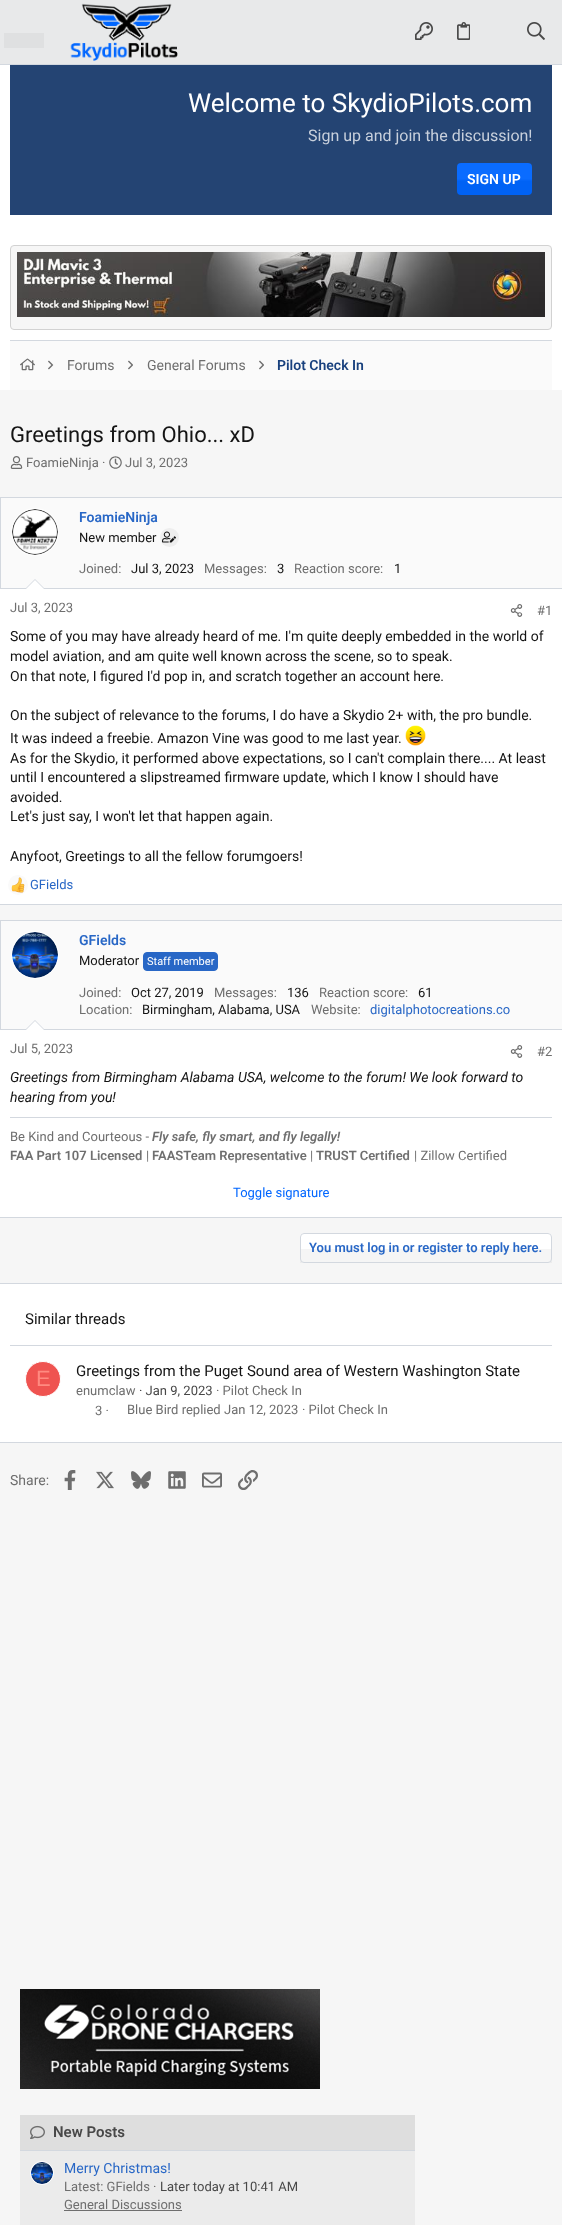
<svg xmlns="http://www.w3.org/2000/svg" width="562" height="2225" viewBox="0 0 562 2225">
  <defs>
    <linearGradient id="g1" gradientUnits="userSpaceOnUse" x1="281" y1="1157" x2="281" y2="1217"><stop offset="0" stop-color="#ffffff" stop-opacity="0"/><stop offset="0.4" stop-color="#ffffff"/></linearGradient>
  </defs>
  <rect width="100%" height="100%" fill="#ffffff"/>
  <rect x="0" y="0" width="562" height="64" fill="#e8e9ea"/>
  <rect x="0" y="64" width="562" height="1" fill="#d3d8df"/>
  <rect x="4" y="33" width="40" height="15" fill="#dfe0e1"/>
  <image x="70" y="3" width="108" height="58" href="img1.png"/>
  <image x="415" y="22" width="18" height="18" href="img2.png"/>
  <image x="457" y="22" width="13" height="18" href="img3.png"/>
  <image x="527" y="22" width="18" height="18" href="img4.png"/>
  <rect x="10" y="65" width="542" height="150" fill="#244473"/>
  <text x="188" y="112" font-family="Roboto" font-size="26" fill="#ffffff">Welcome to SkydioPilots.com</text>
  <text x="308" y="141" font-family="Roboto" font-size="16" fill="#c8d0dc">Sign up and join the discussion!</text>
  <rect x="457" y="163" width="75" height="32" rx="4" fill="#0066ff"/>
  <image x="457" y="163" width="75" height="32" href="img5.png"/>
  <text x="467" y="184" font-family="Roboto" font-size="14" font-weight="600" fill="#ffffff">SIGN UP</text>
  <rect x="10.5" y="245.5" width="541" height="84" rx="3.5" fill="#f6f6f6" stroke="#d2d2d2"/>
  <image x="17" y="252" width="528" height="65" href="img6.png"/>
  <rect x="10" y="341" width="542" height="49" fill="#fafafa"/>
  <rect x="10" y="340" width="542" height="1" fill="#d3d8df"/>
  <image x="20" y="358" width="15" height="13" href="img7.png"/>
  <image x="48" y="360" width="6" height="10" href="img8.png"/>
  <text x="67" y="370" font-family="Roboto" font-size="14" fill="#6e6e6e">Forums</text>
  <image x="128" y="360" width="5" height="10" href="img9.png"/>
  <text x="147" y="370" font-family="Roboto" font-size="14" fill="#6e6e6e">General Forums</text>
  <image x="259" y="360" width="5" height="10" href="img9.png"/>
  <text x="277" y="370" font-family="Roboto" font-size="14" font-weight="600" fill="#19417e">Pilot Check In</text>
  <rect x="0" y="390" width="562" height="1835" fill="#f6f6f6"/>
  <text x="10" y="442" font-family="Roboto" font-size="22" fill="#141414">Greetings from Ohio... xD</text>
  <image x="10" y="456" width="13" height="13" href="img10.png"/>
  <text x="26" y="467" font-family="Roboto" font-size="13" fill="#6e6e6e">FoamieNinja ·</text>
  <image x="109" y="456" width="13" height="13" href="img11.png"/>
  <text x="125" y="467" font-family="Roboto" font-size="13" fill="#6e6e6e">Jul 3, 2023</text>
  <rect x="0" y="589" width="562" height="315" fill="#ffffff"/>
  <rect x="0" y="497" width="562" height="1" fill="#d3d8df"/>
  <rect x="0" y="904" width="562" height="1" fill="#d3d8df"/>
  <rect x="1" y="498" width="561" height="90" fill="#fafafa"/>
  <rect x="0" y="588" width="562" height="1" fill="#d3d8df"/>
  <rect x="0" y="498" width="1" height="91" fill="#d3d8df"/>
  <circle cx="35" cy="532" r="23.5" fill="none" stroke="#ffffff"/>
  <circle cx="35" cy="532" r="23" fill="#ffffff"/>
  <image x="12" y="509" width="46" height="46" href="img12.png"/>
  <text x="79" y="522" font-family="Roboto" font-size="14" font-weight="600" fill="#2867c6">FoamieNinja</text>
  <text x="79" y="542" font-family="Roboto" font-size="13" fill="#141414">New member</text>
  <circle cx="169.5" cy="537.5" r="9.5" fill="#eeeeee"/>
  <image x="162" y="531" width="14" height="12" href="img13.png"/>
  <text x="79" y="573" font-family="Roboto" font-size="13" fill="#6e6e6e">Joined:</text>
  <text x="131" y="573" font-family="Roboto" font-size="13" fill="#141414">Jul 3, 2023</text>
  <text x="204" y="573" font-family="Roboto" font-size="13" fill="#6e6e6e">Messages:</text>
  <text x="277" y="573" font-family="Roboto" font-size="13" fill="#141414">3</text>
  <text x="294" y="573" font-family="Roboto" font-size="13" fill="#6e6e6e">Reaction score:</text>
  <text x="394" y="573" font-family="Roboto" font-size="13" fill="#141414">1</text>
  <path d="M45 589H25L35 579Z" fill="#d3d8df"/>
  <path d="M44 589H26L35 580Z" fill="#ffffff"/>
  <text x="10" y="612" font-family="Roboto" font-size="13" fill="#6e6e6e">Jul 3, 2023</text>
  <image x="510" y="604" width="13" height="13" href="img14.png"/>
  <text x="537" y="615" font-family="Roboto" font-size="13" fill="#6e6e6e">#1</text>
  <text x="10" y="641" font-family="Roboto" font-size="14" fill="#141414">Some of you may have already heard of me. I'm quite deeply embedded in the world of</text>
  <text x="10" y="661" font-family="Roboto" font-size="14" fill="#141414">model aviation, and am quite well known across the scene, so to speak.</text>
  <text x="10" y="681" font-family="Roboto" font-size="14" fill="#141414">On that note, I figured I'd pop in, and scratch together an account here.</text>
  <text x="10" y="720" font-family="Roboto" font-size="14" fill="#141414">On the subject of relevance to the forums, I do have a Skydio 2+ with, the pro bundle.</text>
  <text x="10" y="743" font-family="Roboto" font-size="14" fill="#141414">It was indeed a freebie. Amazon Vine was good to me last year.</text>
  <image x="405" y="725" width="21" height="21" href="img15.png"/>
  <text x="10" y="763" font-family="Roboto" font-size="14" fill="#141414">As for the Skydio, it performed above expectations, so I can't complain there.... At least</text>
  <text x="10" y="782" font-family="Roboto" font-size="14" fill="#141414">until I encountered a slipstreamed firmware update, which I know I should have</text>
  <text x="10" y="802" font-family="Roboto" font-size="14" fill="#141414">avoided.</text>
  <text x="10" y="821" font-family="Roboto" font-size="14" fill="#141414">Let's just say, I won't let that happen again.</text>
  <text x="10" y="861" font-family="Roboto" font-size="14" fill="#141414">Anyfoot, Greetings to all the fellow forumgoers!</text>
  <circle cx="18" cy="885" r="10" fill="#fafafa"/>
  <image x="11" y="877" width="14" height="16" href="img16.png"/>
  <text x="30" y="889" font-family="Roboto" font-size="13" fill="#2867c6">GFields</text>
  <rect x="0" y="1030" width="562" height="187" fill="#ffffff"/>
  <rect x="0" y="920" width="562" height="1" fill="#d3d8df"/>
  <rect x="0" y="1217" width="562" height="1" fill="#d3d8df"/>
  <rect x="1" y="921" width="561" height="108" fill="#fafafa"/>
  <rect x="0" y="1029" width="562" height="1" fill="#d3d8df"/>
  <rect x="0" y="921" width="1" height="109" fill="#d3d8df"/>
  <circle cx="35" cy="955" r="23.5" fill="none" stroke="#ffffff"/>
  <circle cx="35" cy="955" r="23" fill="#ffffff"/>
  <image x="12" y="932" width="46" height="46" href="img17.png"/>
  <text x="79" y="945" font-family="Roboto" font-size="14" font-weight="600" fill="#2867c6">GFields</text>
  <text x="79" y="965" font-family="Roboto" font-size="13" fill="#141414">Moderator</text>
  <rect x="143.5" y="952.5" width="74" height="18" rx="3.5" fill="#2867c6" stroke="#2867c6"/>
  <text x="147" y="965" font-family="Roboto" font-size="11" fill="#ffffff">Staff member</text>
  <text x="79" y="997" font-family="Roboto" font-size="13" fill="#6e6e6e">Joined:</text>
  <text x="131" y="997" font-family="Roboto" font-size="13" fill="#141414">Oct 27, 2019</text>
  <text x="214" y="997" font-family="Roboto" font-size="13" fill="#6e6e6e">Messages:</text>
  <text x="287" y="997" font-family="Roboto" font-size="13" fill="#141414">136</text>
  <text x="319" y="997" font-family="Roboto" font-size="13" fill="#6e6e6e">Reaction score:</text>
  <text x="418" y="997" font-family="Roboto" font-size="13" fill="#141414">61</text>
  <text x="79" y="1014" font-family="Roboto" font-size="13" fill="#6e6e6e">Location:</text>
  <text x="142" y="1014" font-family="Roboto" font-size="13" fill="#141414">Birmingham, Alabama, USA</text>
  <text x="311" y="1014" font-family="Roboto" font-size="13" fill="#6e6e6e">Website:</text>
  <text x="370" y="1014" font-family="Roboto" font-size="13" fill="#2867c6">digitalphotocreations.co</text>
  <path d="M45 1030H25L35 1020Z" fill="#d3d8df"/>
  <path d="M44 1030H26L35 1021Z" fill="#ffffff"/>
  <text x="10" y="1053" font-family="Roboto" font-size="13" fill="#6e6e6e">Jul 5, 2023</text>
  <image x="510" y="1045" width="13" height="13" href="img14.png"/>
  <text x="537" y="1056" font-family="Roboto" font-size="13" fill="#6e6e6e">#2</text>
  <text x="10" y="1082" font-family="Roboto" font-size="14" font-style="italic" fill="#141414">Greetings from Birmingham Alabama USA, welcome to the forum! We look forward to</text>
  <text x="10" y="1102" font-family="Roboto" font-size="14" font-style="italic" fill="#141414">hearing from you!</text>
  <rect x="10" y="1117" width="542" height="1" fill="#d3d8df"/>
  <text x="10" y="1141" font-family="Roboto" font-size="13" fill="#6e6e6e">Be Kind and Courteous -</text>
  <text x="152" y="1141" font-family="Roboto" font-size="13" font-weight="600" font-style="italic" fill="#6e6e6e">Fly safe, fly smart, and fly legally!</text>
  <text x="10" y="1160" font-family="Roboto" font-size="13" font-weight="600" fill="#6e6e6e">FAA Part 107 Licensed</text>
  <text x="146" y="1160" font-family="Roboto" font-size="13" fill="#6e6e6e">|</text>
  <text x="152" y="1160" font-family="Roboto" font-size="13" font-weight="600" fill="#6e6e6e">FAASTeam Representative</text>
  <text x="310" y="1160" font-family="Roboto" font-size="13" fill="#6e6e6e">|</text>
  <text x="316" y="1160" font-family="Roboto" font-size="13" font-weight="600" fill="#6e6e6e">TRUST Certified</text>
  <text x="414" y="1160" font-family="Roboto" font-size="13" fill="#6e6e6e">| Zillow Certified</text>
  <rect x="11" y="1158" width="495" height="5" fill="url(#g1)"/>
  <text x="233" y="1197" font-family="Roboto" font-size="13" fill="#0066ff">Toggle signature</text>
  <rect x="300" y="1233" width="252" height="30" rx="4" fill="#ffffff"/>
  <rect x="300" y="1249" width="252" height="14" fill="#000000" fill-opacity="0.04"/>
  <rect x="300.5" y="1233.5" width="251" height="29" rx="3.5" fill="none" stroke="#d3d8df"/>
  <text x="309" y="1252" font-family="Roboto" font-size="13" font-weight="600" fill="#2867c6">You must log in or register to reply here.</text>
  <rect x="0" y="1284" width="562" height="158" fill="#ffffff"/>
  <rect x="0" y="1283" width="562" height="1" fill="#d3d8df"/>
  <rect x="0" y="1442" width="562" height="1" fill="#d3d8df"/>
  <text x="25" y="1324" font-family="Roboto" font-size="15" fill="#141414">Similar threads</text>
  <rect x="10" y="1345" width="542" height="1" fill="#d3d8df"/>
  <circle cx="43" cy="1379" r="17.5" fill="#ef5350" stroke="#ffffff"/>
  <text x="36" y="1386" font-family="Liberation Sans" font-size="22" fill="#ff8a80">E</text>
  <text x="76" y="1376" font-family="Roboto" font-size="15" fill="#141414">Greetings from the Puget Sound area of Western Washington State</text>
  <text x="76" y="1395" font-family="Roboto" font-size="13" fill="#6e6e6e">enumclaw</text>
  <text x="139" y="1395" font-family="Roboto" font-size="13" fill="#484848">· Jan 9, 2023</text>
  <text x="216" y="1395" font-family="Roboto" font-size="13" fill="#6e6e6e">· Pilot Check In</text>
  <text x="95" y="1415" font-family="Roboto" font-size="13" fill="#6e6e6e">3 ·</text>
  <text x="127" y="1414" font-family="Roboto" font-size="13" fill="#6e6e6e">Blue Bird replied</text>
  <text x="224" y="1414" font-family="Roboto" font-size="13" fill="#6e6e6e">Jan 12, 2023</text>
  <text x="302" y="1414" font-family="Roboto" font-size="13" fill="#6e6e6e">· Pilot Check In</text>
  <text x="10" y="1485" font-family="Roboto" font-size="14" fill="#6e6e6e">Share:</text>
  <image x="64" y="1470" width="12" height="20" href="img18.png"/>
  <image x="96" y="1471" width="18" height="18" href="img19.png"/>
  <image x="131" y="1471" width="20" height="18" href="img20.png"/>
  <image x="168" y="1471" width="18" height="18" href="img21.png"/>
  <image x="202" y="1472" width="20" height="16" href="img22.png"/>
  <image x="238" y="1470" width="20" height="20" href="img23.png"/>
  <image x="20" y="1989" width="300" height="100" href="img24.png"/>
  <rect x="20" y="2151" width="395" height="74" fill="#ebebeb"/>
  <rect x="20" y="2115" width="395" height="35" fill="#dedede"/>
  <rect x="20" y="2150" width="395" height="1" fill="#d3d8df"/>
  <image x="30" y="2125" width="15" height="14" href="img25.png"/>
  <text x="53" y="2137" font-family="Roboto" font-size="15" font-weight="600" fill="#484848">New Posts</text>
  <circle cx="42" cy="2173" r="11.5" fill="none" stroke="#ffffff"/>
  <circle cx="42" cy="2173" r="11" fill="#ffffff"/>
  <image x="31" y="2162" width="22" height="22" href="img26.png"/>
  <text x="64" y="2173" font-family="Roboto" font-size="14" fill="#2867c6">Merry Christmas!</text>
  <text x="64" y="2191" font-family="Roboto" font-size="13" fill="#6e6e6e">Latest: GFields ·</text>
  <text x="160" y="2191" font-family="Roboto" font-size="13" fill="#484848">Later today at 10:41 AM</text>
  <text x="64" y="2209" font-family="Roboto" font-size="13" fill="#6e6e6e">General Discussions</text>
  <rect x="64" y="2210" width="118" height="1" fill="#6e6e6e"/>
</svg>
